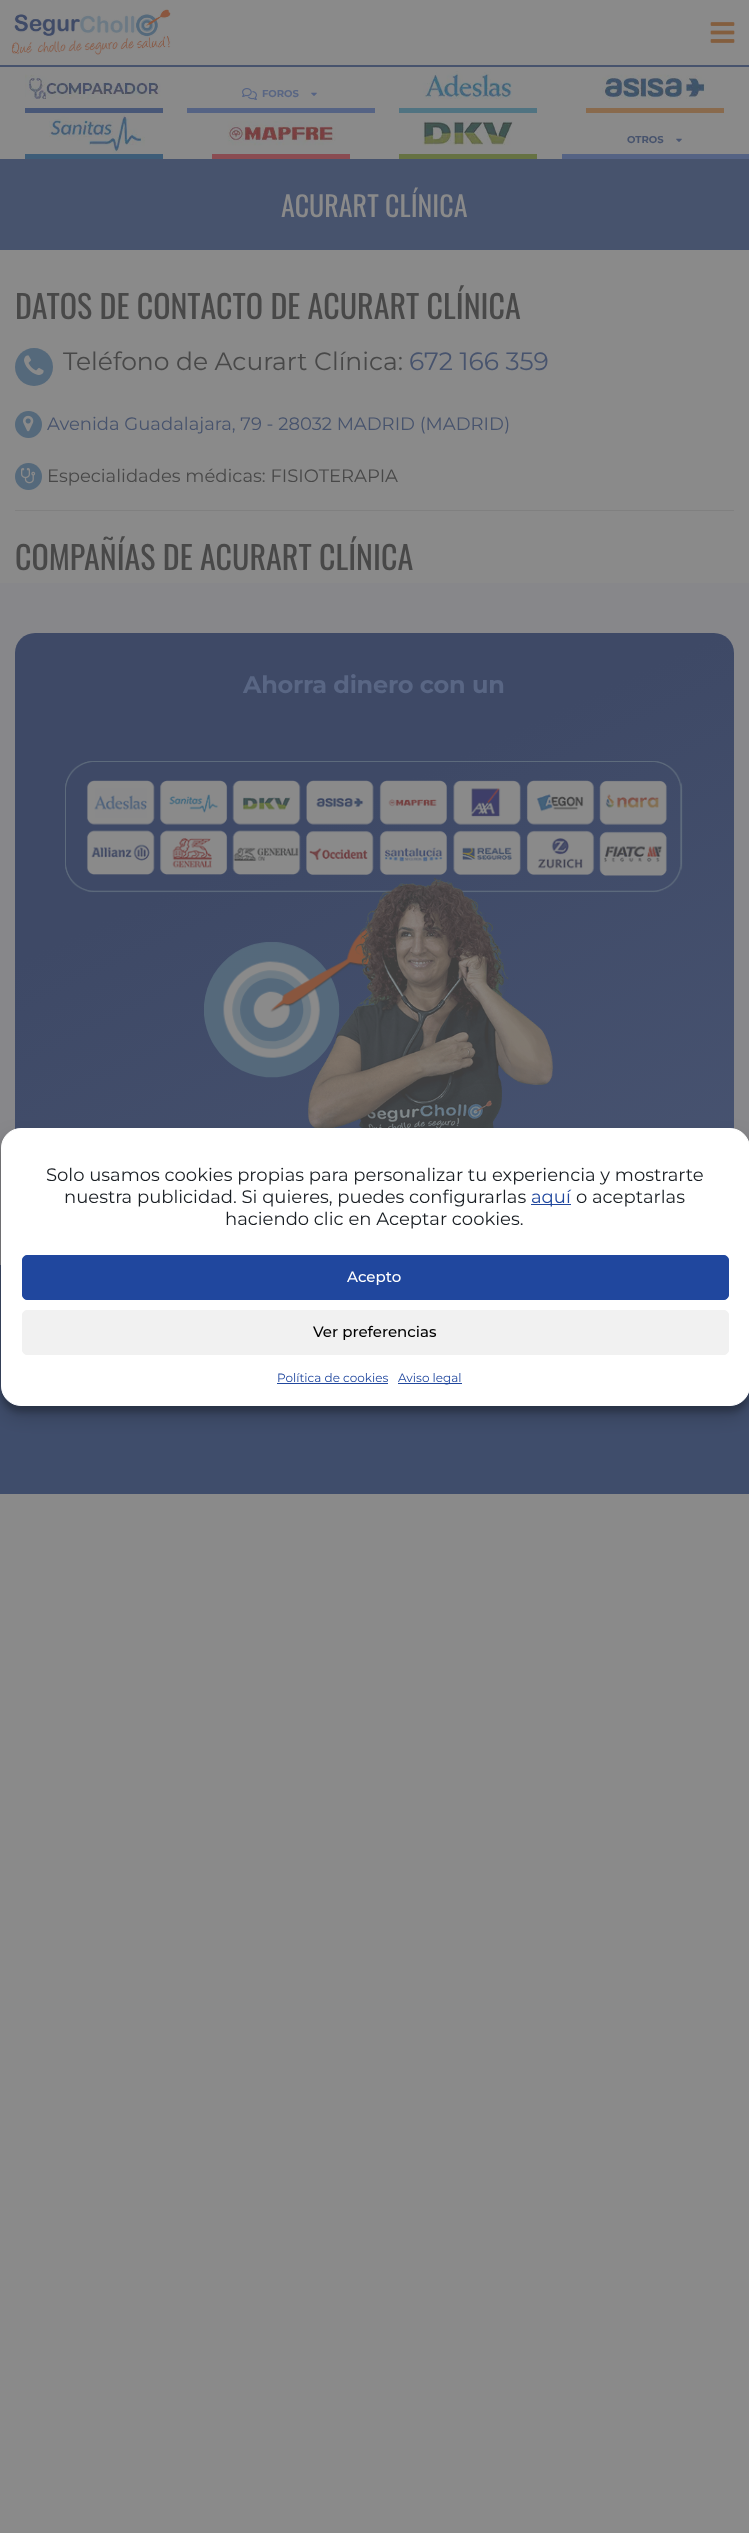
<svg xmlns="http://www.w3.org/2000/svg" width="749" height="2533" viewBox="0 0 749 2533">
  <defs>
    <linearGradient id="g1" gradientUnits="userSpaceOnUse" x1="189" y1="552" x2="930" y2="2141"><stop offset="0.17" stop-color="#3e4966"/><stop offset="1" stop-color="#596684"/></linearGradient>
    <clipPath id="clip1"><path d="M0 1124H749V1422H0ZM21 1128H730C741 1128 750 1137 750 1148V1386C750 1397 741 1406 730 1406H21C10 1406 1 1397 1 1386V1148C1 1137 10 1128 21 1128Z" clip-rule="evenodd"/></clipPath>
    <filter id="blur1" x="-50%" y="-200%" width="200%" height="500%"><feGaussianBlur stdDeviation="3"/></filter>
    <clipPath id="clip2"><path d="M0 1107H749V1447H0ZM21 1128H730C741 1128 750 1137 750 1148V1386C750 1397 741 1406 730 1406H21C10 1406 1 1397 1 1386V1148C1 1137 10 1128 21 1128Z" clip-rule="evenodd"/></clipPath>
    <filter id="blur2" x="-50%" y="-200%" width="200%" height="500%"><feGaussianBlur stdDeviation="10"/></filter>
  </defs>
  <rect width="100%" height="100%" fill="#8a8a8a"/>
  <rect x="0" y="65" width="749" height="2" fill="#47536d"/>
  <image x="12" y="9" width="159" height="46" href="img1.png"/>
  <image x="710" y="22" width="25" height="21" href="img2.png"/>
  <rect x="25" y="108" width="138" height="5" fill="#485777"/>
  <image x="25" y="74" width="136" height="25" href="img3.png"/>
  <rect x="187" y="108" width="188" height="5" fill="#556384"/>
  <image x="242" y="88" width="15" height="12" href="img4.png"/>
  <text x="262" y="97" font-family="'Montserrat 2'" font-size="10" font-weight="100" fill="#596684">FOROS</text>
  <image x="311" y="92" width="6" height="4" href="img5.png"/>
  <rect x="399" y="108" width="138" height="5" fill="#507381"/>
  <image x="422" y="71" width="90" height="29" href="img6.png"/>
  <rect x="586" y="108" width="138" height="5" fill="#896a4d"/>
  <image x="602" y="74" width="104" height="26" href="img7.png"/>
  <rect x="25" y="154" width="138" height="5" fill="#3e5d78"/>
  <image x="49" y="113" width="96" height="40" href="img8.png"/>
  <rect x="212" y="154" width="138" height="5" fill="#8a4c52"/>
  <image x="227" y="121" width="109" height="25" href="img9.png"/>
  <rect x="399" y="154" width="138" height="5" fill="#667243"/>
  <image x="422" y="120" width="92" height="26" href="img10.png"/>
  <rect x="562" y="154" width="187" height="5" fill="#556384"/>
  <text x="627" y="143" font-family="'Montserrat 2'" font-size="10" font-weight="100" fill="#47536d">OTROS</text>
  <image x="676" y="138" width="6" height="4" href="img11.png"/>
  <rect x="0" y="159" width="749" height="91" fill="#47536d"/>
  <text x="281" y="217" font-family="Oswald" font-size="28" fill="#8a8a8a">ACURART CLÍNICA</text>
  <text x="15" y="319" font-family="Oswald" font-size="32" fill="#484848">DATOS DE CONTACTO DE ACURART CLÍNICA</text>
  <circle cx="34" cy="367" r="19" fill="#55697b"/>
  <image x="24" y="355" width="20" height="20" href="img12.png"/>
  <text x="63" y="370" font-family="Montserrat" font-size="25" font-weight="100" fill="#484848">Teléfono de Acurart Clínica:</text>
  <text x="409" y="370" font-family="Montserrat" font-size="25" font-weight="100" fill="#47536d">672 166 359</text>
  <circle cx="28.5" cy="424.5" r="13.5" fill="#55697b"/>
  <image x="23" y="415" width="11" height="17" href="img13.png"/>
  <text x="47" y="430" font-family="Montserrat" font-size="18" font-weight="100" fill="#47536d">Avenida Guadalajara, 79 - 28032 MADRID (MADRID)</text>
  <circle cx="28.5" cy="476.5" r="13.5" fill="#55697b"/>
  <image x="21" y="467" width="15" height="17" href="img14.png"/>
  <text x="47" y="482" font-family="Montserrat" font-size="18" font-weight="100" fill="#484848">Especialidades médicas: FISIOTERAPIA</text>
  <rect x="15" y="510" width="719" height="1" fill="#808080"/>
  <text x="15" y="570" font-family="Oswald" font-size="32" fill="#484848">COMPAÑÍAS DE ACURART CLÍNICA</text>
  <rect x="0" y="583" width="749" height="682" fill="#87878a"/>
  <rect x="15" y="633" width="719" height="632" rx="20" fill="url(#g1)"/>
  <text x="243" y="693" font-family="'Montserrat 2'" font-size="24" font-weight="100" letter-spacing="-0.25" fill="#596684">Ahorra dinero con un</text>
  <image x="65" y="761" width="618" height="132" href="img15.png"/>
  <image x="204" y="927" width="169" height="151" href="img16.png"/>
  <image x="308" y="877" width="246" height="251" href="img17.png"/>
  <rect x="0" y="1265" width="749" height="229" fill="#3f4d6b"/>
  <g clip-path="url(#clip1)">
    <rect x="1" y="1134" width="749" height="278" rx="20" fill="#000000" fill-opacity="0.23" filter="url(#blur1)"/>
  </g>
  <g clip-path="url(#clip2)">
    <rect x="1" y="1138" width="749" height="278" rx="20" fill="#000000" fill-opacity="0.19" filter="url(#blur2)"/>
  </g>
  <rect x="1.5" y="1128.5" width="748" height="277" rx="19.5" fill="#ffffff" stroke="#ffffff"/>
  <text x="46" y="1181" font-family="Montserrat" font-size="18" font-weight="100" fill="#191e23">Solo usamos cookies propias para personalizar tu experiencia y mostrarte</text>
  <text x="64" y="1203" font-family="Montserrat" font-size="18" font-weight="100" fill="#191e23">nuestra publicidad. Si quieres, puedes configurarlas</text>
  <rect x="531" y="1204" width="40" height="1" fill="#20479e"/>
  <text x="531" y="1203" font-family="Montserrat" font-size="18" font-weight="100" fill="#20479e">aquí</text>
  <text x="576" y="1203" font-family="Montserrat" font-size="18" font-weight="100" fill="#191e23">o aceptarlas</text>
  <text x="225" y="1225" font-family="Montserrat" font-size="18" font-weight="100" fill="#191e23">haciendo clic en Aceptar cookies.</text>
  <rect x="22.5" y="1255.5" width="706" height="44" rx="4.5" fill="#20479e" stroke="#20479e"/>
  <text x="347" y="1282" font-family="'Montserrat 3'" font-size="15" font-weight="100" fill="#ffffff">Acepto</text>
  <rect x="22.5" y="1310.5" width="706" height="44" rx="4.5" fill="#f1f1f1" stroke="#f1f1f1"/>
  <text x="313" y="1337" font-family="'Montserrat 3'" font-size="15" font-weight="100" fill="#000000">Ver preferencias</text>
  <text x="277" y="1382" font-family="Montserrat" font-size="12" font-weight="100" fill="#20479e">Política de cookies</text>
  <rect x="277" y="1383" width="111" height="1" fill="#20479e"/>
  <rect x="398" y="1383" width="64" height="1" fill="#20479e"/>
  <text x="398" y="1382" font-family="Montserrat" font-size="12" font-weight="100" fill="#20479e">Aviso legal</text>
</svg>
